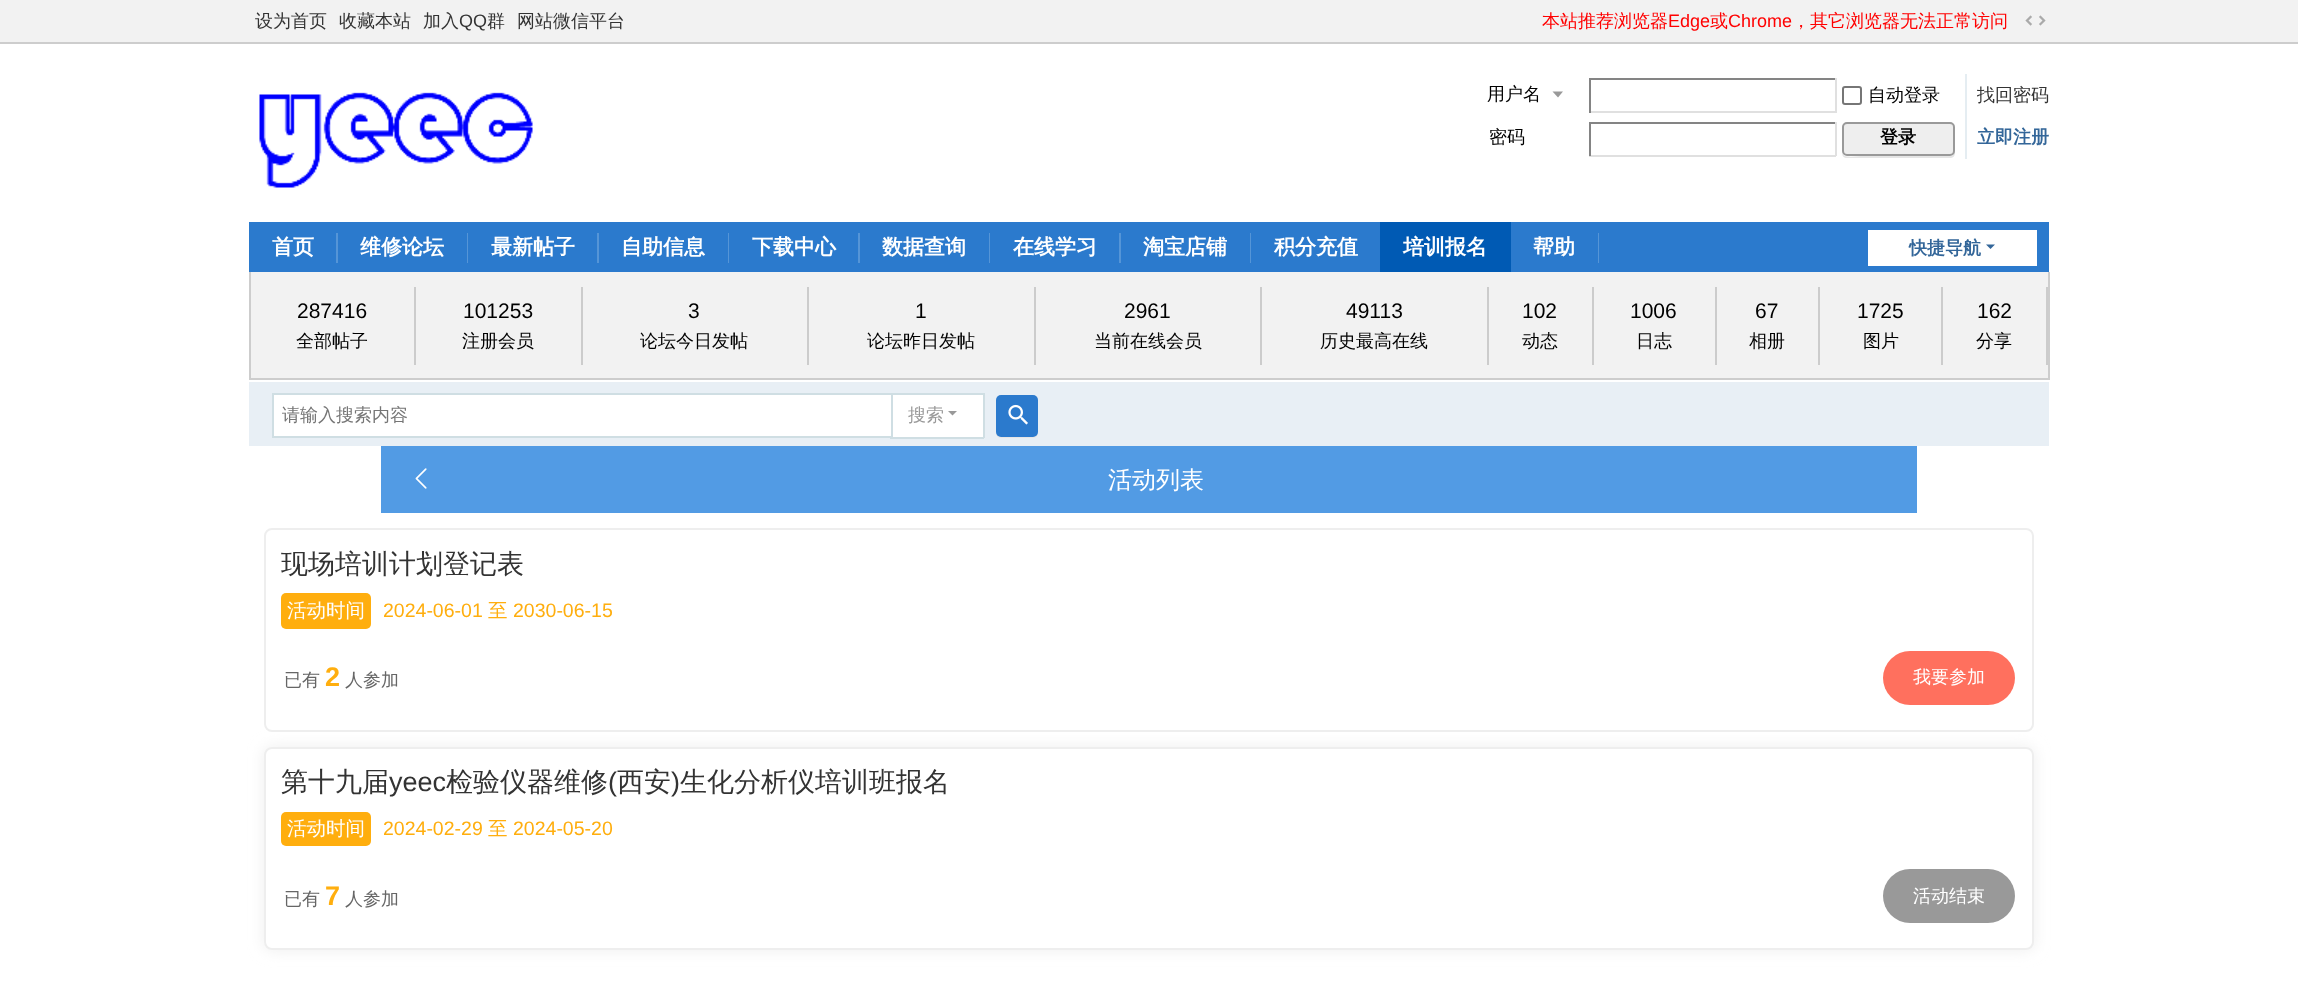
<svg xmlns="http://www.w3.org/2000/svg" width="2298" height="995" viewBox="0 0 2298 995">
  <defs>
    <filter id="blur1" x="-50%" y="-200%" width="200%" height="500%"><feGaussianBlur stdDeviation="7.5"/></filter>
  </defs>
  <rect width="100%" height="100%" fill="#ffffff"/>
  <rect x="0" y="0" width="2298" height="42" fill="#f2f2f2"/>
  <rect x="0" y="42" width="2298" height="2" fill="#cdcdcd"/>
  <text x="255" y="27" font-family="WenQuanYi Zen Hei" font-size="18" font-weight="500" fill="#333333">设为首页</text>
  <text x="339" y="27" font-family="WenQuanYi Zen Hei" font-size="18" font-weight="500" fill="#333333">收藏本站</text>
  <text x="423" y="27" font-family="WenQuanYi Zen Hei" font-size="18" font-weight="500" fill="#333333">加入</text>
  <text x="459" y="27" font-family="Liberation Sans" font-size="18" fill="#333333">QQ</text>
  <text x="487" y="27" font-family="WenQuanYi Zen Hei" font-size="18" font-weight="500" fill="#333333">群</text>
  <text x="517" y="27" font-family="WenQuanYi Zen Hei" font-size="18" font-weight="500" fill="#333333">网站微信平台</text>
  <text x="1542" y="27" font-family="WenQuanYi Zen Hei" font-size="18" font-weight="500" fill="#ff0000">本站推荐浏览器</text>
  <text x="1668" y="27" font-family="Liberation Sans" font-size="18" fill="#ff0000">Edge</text>
  <text x="1710" y="27" font-family="WenQuanYi Zen Hei" font-size="18" font-weight="500" fill="#ff0000">或</text>
  <text x="1728" y="27" font-family="Liberation Sans" font-size="18" fill="#ff0000">Chrome</text>
  <text x="1792" y="27" font-family="WenQuanYi Zen Hei" font-size="18" font-weight="500" fill="#ff0000">，其它浏览器无法正常访问</text>
  <image x="2025" y="15" width="21" height="11" href="img1.png"/>
  <image x="259" y="92" width="274" height="96" href="img2.png"/>
  <path d="M1563 91.5H1552.5L1558 97.5Z" fill="#999999"/>
  <text x="1487" y="100" font-family="WenQuanYi Zen Hei" font-size="18" font-weight="500" fill="#000000">用户名</text>
  <rect x="1589" y="78" width="247" height="2" fill="#848484"/>
  <rect x="1835" y="78" width="2" height="35" fill="#e0e0e0"/>
  <rect x="1589" y="111" width="247" height="2" fill="#e0e0e0"/>
  <rect x="1589" y="78" width="2" height="35" fill="#848484"/>
  <rect x="1843" y="87" width="18" height="17" rx="2" fill="none" stroke="#767676" stroke-width="2"/>
  <text x="1868" y="101" font-family="WenQuanYi Zen Hei" font-size="18" font-weight="500" fill="#000000">自动登录</text>
  <text x="1977" y="101" font-family="WenQuanYi Zen Hei" font-size="18" font-weight="500" fill="#333333">找回密码</text>
  <text x="1489" y="143" font-family="WenQuanYi Zen Hei" font-size="18" font-weight="500" fill="#000000">密码</text>
  <rect x="1589" y="122" width="247" height="2" fill="#848484"/>
  <rect x="1835" y="122" width="2" height="34" fill="#e0e0e0"/>
  <rect x="1589" y="155" width="247" height="2" fill="#e0e0e0"/>
  <rect x="1589" y="122" width="2" height="34" fill="#848484"/>
  <rect x="1965" y="74" width="2" height="85" fill="#e5edf2"/>
  <path d="M1842 152V153C1842 156 1844 158 1847 158H1950C1953 158 1955 156 1955 153V128L1954 126V147C1954 151 1955 156 1950 156H1864C1855 156 1842 159 1842 152Z" fill="#e5e5e5"/>
  <rect x="1843" y="123" width="111" height="32" rx="4" fill="#eeeeee" stroke="#999999" stroke-width="2"/>
  <text x="1880" y="143" font-family="WenQuanYi Zen Hei" font-size="18" font-weight="bold" fill="#000000">登录</text>
  <text x="1977" y="143" font-family="WenQuanYi Zen Hei" font-size="18" font-weight="bold" fill="#336699">立即注册</text>
  <rect x="249" y="222" width="1800" height="50" fill="#2b7acd"/>
  <rect x="336" y="233" width="2" height="30" fill="#5595d7"/>
  <text x="272" y="254" font-family="WenQuanYi Zen Hei" font-size="21" font-weight="bold" fill="#ffffff">首页</text>
  <rect x="467" y="233" width="1" height="30" fill="#5595d7"/>
  <text x="360" y="254" font-family="WenQuanYi Zen Hei" font-size="21" font-weight="bold" fill="#ffffff">维修论坛</text>
  <rect x="597" y="233" width="2" height="30" fill="#5595d7"/>
  <text x="491" y="254" font-family="WenQuanYi Zen Hei" font-size="21" font-weight="bold" fill="#ffffff">最新帖子</text>
  <rect x="728" y="233" width="1" height="30" fill="#5595d7"/>
  <text x="621" y="254" font-family="WenQuanYi Zen Hei" font-size="21" font-weight="bold" fill="#ffffff">自助信息</text>
  <rect x="858" y="233" width="2" height="30" fill="#5595d7"/>
  <text x="752" y="254" font-family="WenQuanYi Zen Hei" font-size="21" font-weight="bold" fill="#ffffff">下载中心</text>
  <rect x="989" y="233" width="1" height="30" fill="#5595d7"/>
  <text x="882" y="254" font-family="WenQuanYi Zen Hei" font-size="21" font-weight="bold" fill="#ffffff">数据查询</text>
  <rect x="1119" y="233" width="2" height="30" fill="#5595d7"/>
  <text x="1013" y="254" font-family="WenQuanYi Zen Hei" font-size="21" font-weight="bold" fill="#ffffff">在线学习</text>
  <rect x="1250" y="233" width="1" height="30" fill="#5595d7"/>
  <text x="1143" y="254" font-family="WenQuanYi Zen Hei" font-size="21" font-weight="bold" fill="#ffffff">淘宝店铺</text>
  <text x="1274" y="254" font-family="WenQuanYi Zen Hei" font-size="21" font-weight="bold" fill="#ffffff">积分充值</text>
  <rect x="1380" y="222" width="131" height="50" fill="#005ab4"/>
  <text x="1403" y="254" font-family="WenQuanYi Zen Hei" font-size="21" font-weight="bold" fill="#ffffff">培训报名</text>
  <rect x="1598" y="233" width="1" height="30" fill="#5595d7"/>
  <text x="1533" y="254" font-family="WenQuanYi Zen Hei" font-size="21" font-weight="bold" fill="#ffffff">帮助</text>
  <rect x="1868" y="230" width="169" height="36" fill="#ffffff"/>
  <text x="1909" y="254" font-family="WenQuanYi Zen Hei" font-size="18" font-weight="bold" fill="#336699">快捷导航</text>
  <path d="M1986 244.5H1995L1990.5 249Z" fill="#336699"/>
  <rect x="251" y="272" width="1797" height="106" fill="#f2f2f2"/>
  <rect x="2048" y="272" width="2" height="108" fill="#cdcdcd"/>
  <rect x="249" y="378" width="1800" height="2" fill="#cdcdcd"/>
  <rect x="249" y="272" width="2" height="108" fill="#cdcdcd"/>
  <rect x="414" y="287" width="2" height="78" fill="#cccccc"/>
  <text x="297" y="318" font-family="Liberation Sans" font-size="21" fill="#000000">287416</text>
  <text x="296" y="347" font-family="WenQuanYi Zen Hei" font-size="18" font-weight="500" fill="#000000">全部帖子</text>
  <rect x="581" y="287" width="2" height="78" fill="#cccccc"/>
  <text x="463" y="318" font-family="Liberation Sans" font-size="21" fill="#000000">101253</text>
  <text x="462" y="347" font-family="WenQuanYi Zen Hei" font-size="18" font-weight="500" fill="#000000">注册会员</text>
  <rect x="807" y="287" width="2" height="78" fill="#cccccc"/>
  <text x="688" y="318" font-family="Liberation Sans" font-size="21" fill="#000000">3</text>
  <text x="640" y="347" font-family="WenQuanYi Zen Hei" font-size="18" font-weight="500" fill="#000000">论坛今日发帖</text>
  <rect x="1034" y="287" width="2" height="78" fill="#cccccc"/>
  <text x="915" y="318" font-family="Liberation Sans" font-size="21" fill="#000000">1</text>
  <text x="867" y="347" font-family="WenQuanYi Zen Hei" font-size="18" font-weight="500" fill="#000000">论坛昨日发帖</text>
  <rect x="1260" y="287" width="2" height="78" fill="#cccccc"/>
  <text x="1124" y="318" font-family="Liberation Sans" font-size="21" fill="#000000">2961</text>
  <text x="1094" y="347" font-family="WenQuanYi Zen Hei" font-size="18" font-weight="500" fill="#000000">当前在线会员</text>
  <rect x="1487" y="287" width="2" height="78" fill="#cccccc"/>
  <text x="1346" y="318" font-family="Liberation Sans" font-size="21" fill="#000000">49113</text>
  <text x="1320" y="347" font-family="WenQuanYi Zen Hei" font-size="18" font-weight="500" fill="#000000">历史最高在线</text>
  <rect x="1592" y="287" width="2" height="78" fill="#cccccc"/>
  <text x="1522" y="318" font-family="Liberation Sans" font-size="21" fill="#000000">102</text>
  <text x="1522" y="347" font-family="WenQuanYi Zen Hei" font-size="18" font-weight="500" fill="#000000">动态</text>
  <rect x="1715" y="287" width="2" height="78" fill="#cccccc"/>
  <text x="1630" y="318" font-family="Liberation Sans" font-size="21" fill="#000000">1006</text>
  <text x="1636" y="347" font-family="WenQuanYi Zen Hei" font-size="18" font-weight="500" fill="#000000">日志</text>
  <rect x="1818" y="287" width="2" height="78" fill="#cccccc"/>
  <text x="1755" y="318" font-family="Liberation Sans" font-size="21" fill="#000000">67</text>
  <text x="1749" y="347" font-family="WenQuanYi Zen Hei" font-size="18" font-weight="500" fill="#000000">相册</text>
  <rect x="1941" y="287" width="2" height="78" fill="#cccccc"/>
  <text x="1857" y="318" font-family="Liberation Sans" font-size="21" fill="#000000">1725</text>
  <text x="1863" y="347" font-family="WenQuanYi Zen Hei" font-size="18" font-weight="500" fill="#000000">图片</text>
  <rect x="2046" y="287" width="2" height="78" fill="#cccccc"/>
  <text x="1977" y="318" font-family="Liberation Sans" font-size="21" fill="#000000">162</text>
  <text x="1976" y="347" font-family="WenQuanYi Zen Hei" font-size="18" font-weight="500" fill="#000000">分享</text>
  <rect x="249" y="382" width="1800" height="64" fill="#e8eff5"/>
  <rect x="890" y="393" width="94" height="2" fill="#cfdee3"/>
  <rect x="983" y="393" width="2" height="45" fill="#cfdee3"/>
  <rect x="890" y="437" width="94" height="2" fill="#cfdee3"/>
  <rect x="273" y="394" width="619" height="43" fill="#ffffff" stroke="#cfdee3" stroke-width="2"/>
  <text x="282" y="421" font-family="WenQuanYi Zen Hei" font-size="18" font-weight="500" fill="#757575">请输入搜索内容</text>
  <rect x="893" y="395" width="90" height="42" fill="#ffffff"/>
  <text x="908" y="421" font-family="WenQuanYi Zen Hei" font-size="18" font-weight="500" fill="#999999">搜索</text>
  <path d="M948 411H957L952.5 415.5Z" fill="#999999"/>
  <path d="M996 432C996 439 1001 438 1006 438H1028C1033 438 1038 439 1038 432C1038 434 1036 436 1034 436H1000C998 436 996 434 996 432Z" fill="#e5e5e5"/>
  <rect x="996" y="395" width="42" height="42" rx="5" fill="#2b7acd"/>
  <image x="1008" y="404" width="20" height="21" href="img3.png"/>
  <rect x="381" y="446" width="1536" height="67" fill="#529be4"/>
  <image x="415" y="468" width="12" height="21" href="img4.png"/>
  <text x="1108" y="488" font-family="WenQuanYi Zen Hei" font-size="24" font-weight="500" fill="#ffffff">活动列表</text>
  <rect x="265" y="529" width="1768" height="202" rx="7" fill="none" stroke="#eeeeee" stroke-width="2"/>
  <text x="281" y="573" font-family="WenQuanYi Zen Hei" font-size="27" font-weight="500" fill="#333333">现场培训计划登记表</text>
  <rect x="281" y="593" width="90" height="36" rx="5" fill="#ffae0e"/>
  <text x="287" y="617" font-family="WenQuanYi Zen Hei" font-size="19.5" font-weight="500" fill="#ffffff">活动时间</text>
  <text x="383" y="617" font-family="Liberation Sans" font-size="19.5" fill="#ffae0e">2024-06-01</text>
  <text x="488" y="617" font-family="WenQuanYi Zen Hei" font-size="19.5" font-weight="500" fill="#ffae0e">至</text>
  <text x="513" y="617" font-family="Liberation Sans" font-size="19.5" fill="#ffae0e">2030-06-15</text>
  <text x="284" y="686" font-family="WenQuanYi Zen Hei" font-size="18" font-weight="500" fill="#666666">已有</text>
  <text x="325" y="686" font-family="Liberation Sans" font-size="27" font-weight="bold" fill="#ffae0e">2</text>
  <text x="345" y="686" font-family="WenQuanYi Zen Hei" font-size="18" font-weight="500" fill="#666666">人参加</text>
  <rect x="1883" y="651" width="132" height="54" rx="27" fill="#ff705e"/>
  <text x="1913" y="683" font-family="WenQuanYi Zen Hei" font-size="18" font-weight="500" fill="#ffffff">我要参加</text>
  <rect x="264" y="747" width="1770" height="203" rx="8" fill="#eeeeee" filter="url(#blur1)"/>
  <rect x="265" y="748" width="1768" height="201" rx="7" fill="#ffffff" stroke="#eeeeee" stroke-width="2"/>
  <text x="281" y="791" font-family="WenQuanYi Zen Hei" font-size="27" font-weight="500" fill="#333333">第十九届</text>
  <text x="389" y="791" font-family="Liberation Sans" font-size="27" fill="#333333">yeec</text>
  <text x="446" y="791" font-family="WenQuanYi Zen Hei" font-size="27" font-weight="500" fill="#333333">检验仪器维修</text>
  <text x="608" y="791" font-family="Liberation Sans" font-size="27" fill="#333333">(</text>
  <text x="617" y="791" font-family="WenQuanYi Zen Hei" font-size="27" font-weight="500" fill="#333333">西安</text>
  <text x="671" y="791" font-family="Liberation Sans" font-size="27" fill="#333333">)</text>
  <text x="680" y="791" font-family="WenQuanYi Zen Hei" font-size="27" font-weight="500" fill="#333333">生化分析仪培训班报名</text>
  <rect x="281" y="812" width="90" height="34" rx="5" fill="#ffae0e"/>
  <text x="287" y="835" font-family="WenQuanYi Zen Hei" font-size="19.5" font-weight="500" fill="#ffffff">活动时间</text>
  <text x="383" y="835" font-family="Liberation Sans" font-size="19.5" fill="#ffae0e">2024-02-29</text>
  <text x="488" y="835" font-family="WenQuanYi Zen Hei" font-size="19.5" font-weight="500" fill="#ffae0e">至</text>
  <text x="513" y="835" font-family="Liberation Sans" font-size="19.5" fill="#ffae0e">2024-05-20</text>
  <text x="284" y="905" font-family="WenQuanYi Zen Hei" font-size="18" font-weight="500" fill="#666666">已有</text>
  <text x="325" y="905" font-family="Liberation Sans" font-size="27" font-weight="bold" fill="#ffae0e">7</text>
  <text x="345" y="905" font-family="WenQuanYi Zen Hei" font-size="18" font-weight="500" fill="#666666">人参加</text>
  <rect x="1883" y="869" width="132" height="54" rx="27" fill="#999999"/>
  <text x="1913" y="902" font-family="WenQuanYi Zen Hei" font-size="18" font-weight="500" fill="#ffffff">活动结束</text>
</svg>
